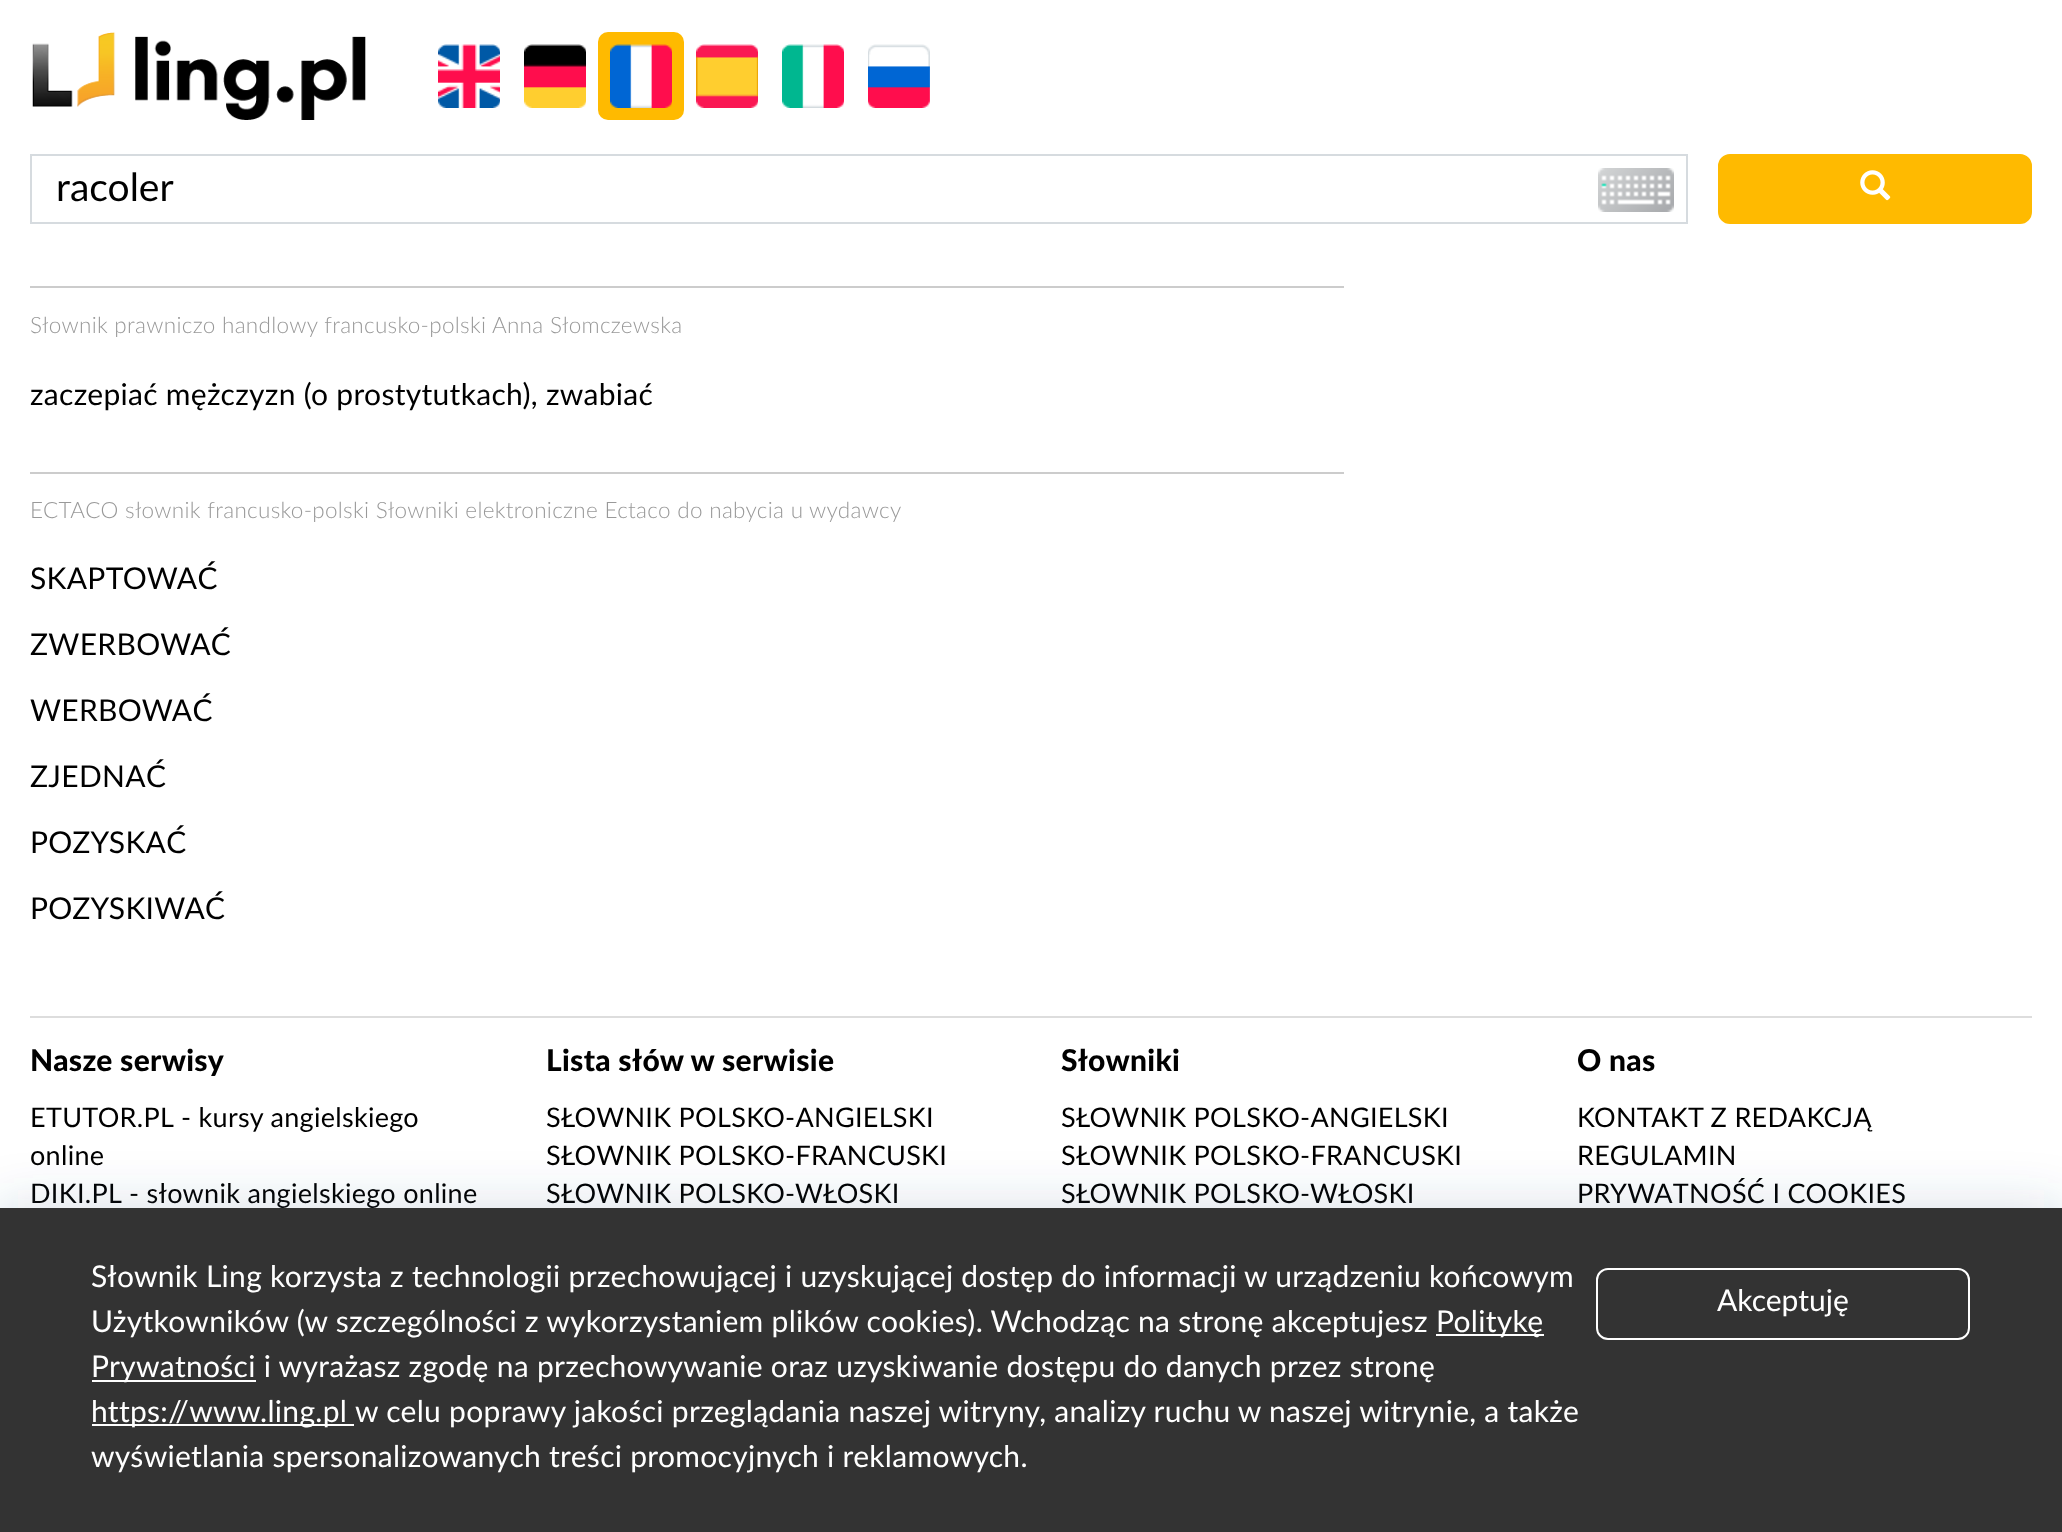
<svg xmlns="http://www.w3.org/2000/svg" width="2062" height="1532" viewBox="0 0 2062 1532">
  <defs>
    <filter id="blur1" x="-50%" y="-200%" width="200%" height="500%"><feGaussianBlur stdDeviation="27"/></filter>
  </defs>
  <rect width="100%" height="100%" fill="#ffffff"/>
  <image x="32" y="32" width="334" height="88" href="img1.png"/>
  <image x="438" y="44" width="62" height="64" href="img2.png"/>
  <image x="524" y="44" width="62" height="64" href="img3.png"/>
  <rect x="598" y="32" width="86" height="88" rx="10" fill="#ffba00"/>
  <image x="610" y="44" width="62" height="64" href="img4.png"/>
  <image x="696" y="44" width="62" height="64" href="img5.png"/>
  <image x="782" y="44" width="62" height="64" href="img6.png"/>
  <image x="868" y="44" width="62" height="64" href="img7.png"/>
  <rect x="31" y="155" width="1656" height="68" fill="none" stroke="#d6dbdf" stroke-width="2"/>
  <text x="56" y="201" font-family="Lato" font-size="39" fill="#000000">racoler</text>
  <image x="1598" y="168" width="76" height="44" href="img8.png"/>
  <rect x="1719" y="155" width="312" height="68" rx="11" fill="#ffba00" stroke="#ffba00" stroke-width="2"/>
  <image x="1860" y="170" width="31" height="31" href="img9.png"/>
  <rect x="30" y="286" width="1314" height="2" fill="#cccccc"/>
  <text x="30" y="333" font-family="Lato" font-size="22.5" font-weight="300" letter-spacing="0.3" fill="#999999">Słownik prawniczo handlowy francusko-polski Anna Słomczewska</text>
  <text x="30" y="405" font-family="Lato" font-size="30" letter-spacing="0.3" fill="#000000">zaczepiać mężczyzn (o prostytutkach), zwabiać</text>
  <rect x="30" y="472" width="1314" height="2" fill="#cccccc"/>
  <text x="30" y="518" font-family="Lato" font-size="22.5" font-weight="300" letter-spacing="0.3" fill="#999999">ECTACO słownik francusko-polski Słowniki elektroniczne Ectaco do nabycia u</text>
  <text x="809" y="518" font-family="Lato" font-size="22.5" font-weight="300" letter-spacing="0.3" fill="#999999">wydawcy</text>
  <text x="30" y="589" font-family="Lato" font-size="30" letter-spacing="0.3" fill="#000000">SKAPTOWAĆ</text>
  <text x="30" y="655" font-family="Lato" font-size="30" letter-spacing="0.3" fill="#000000">ZWERBOWAĆ</text>
  <text x="30" y="721" font-family="Lato" font-size="30" letter-spacing="0.3" fill="#000000">WERBOWAĆ</text>
  <text x="30" y="787" font-family="Lato" font-size="30" letter-spacing="0.3" fill="#000000">ZJEDNAĆ</text>
  <text x="30" y="853" font-family="Lato" font-size="30" letter-spacing="0.3" fill="#000000">POZYSKAĆ</text>
  <text x="30" y="919" font-family="Lato" font-size="30" letter-spacing="0.3" fill="#000000">POZYSKIWAĆ</text>
  <rect x="30" y="1016" width="2002" height="2" fill="#dddddd"/>
  <text x="30" y="1071" font-family="Lato" font-size="30" font-weight="900" letter-spacing="0.3" fill="#000000">Nasze serwisy</text>
  <text x="30" y="1127" font-family="Lato" font-size="27" letter-spacing="0.3" fill="#000000">ETUTOR.PL</text>
  <text x="181" y="1127" font-family="Lato" font-size="27" letter-spacing="0.3" fill="#000000">- kursy angielskiego</text>
  <text x="30" y="1165" font-family="Lato" font-size="27" letter-spacing="0.3" fill="#000000">online</text>
  <text x="30" y="1203" font-family="Lato" font-size="27" letter-spacing="0.3" fill="#000000">DIKI.PL</text>
  <text x="129" y="1203" font-family="Lato" font-size="27" letter-spacing="0.3" fill="#000000">- słownik angielskiego online</text>
  <text x="546" y="1071" font-family="Lato" font-size="30" font-weight="900" letter-spacing="0.3" fill="#000000">Lista słów w serwisie</text>
  <text x="546" y="1127" font-family="Lato" font-size="27" letter-spacing="0.3" fill="#000000">SŁOWNIK POLSKO-ANGIELSKI</text>
  <text x="546" y="1165" font-family="Lato" font-size="27" letter-spacing="0.3" fill="#000000">SŁOWNIK POLSKO-FRANCUSKI</text>
  <text x="546" y="1203" font-family="Lato" font-size="27" letter-spacing="0.3" fill="#000000">SŁOWNIK POLSKO-WŁOSKI</text>
  <text x="1061" y="1071" font-family="Lato" font-size="30" font-weight="900" letter-spacing="0.3" fill="#000000">Słowniki</text>
  <text x="1061" y="1127" font-family="Lato" font-size="27" letter-spacing="0.3" fill="#000000">SŁOWNIK POLSKO-ANGIELSKI</text>
  <text x="1061" y="1165" font-family="Lato" font-size="27" letter-spacing="0.3" fill="#000000">SŁOWNIK POLSKO-FRANCUSKI</text>
  <text x="1061" y="1203" font-family="Lato" font-size="27" letter-spacing="0.3" fill="#000000">SŁOWNIK POLSKO-WŁOSKI</text>
  <text x="1577" y="1071" font-family="Lato" font-size="30" font-weight="900" letter-spacing="0.3" fill="#000000">O nas</text>
  <text x="1577" y="1127" font-family="Lato" font-size="27" letter-spacing="0.3" fill="#000000">KONTAKT Z REDAKCJĄ</text>
  <text x="1577" y="1165" font-family="Lato" font-size="27" letter-spacing="0.3" fill="#000000">REGULAMIN</text>
  <text x="1577" y="1203" font-family="Lato" font-size="27" letter-spacing="0.3" fill="#000000">PRYWATNOŚĆ I COOKIES</text>
  <rect x="0" y="1208" width="2062" height="324" fill="#3c5983" fill-opacity="0.2" filter="url(#blur1)"/>
  <rect x="0" y="1208" width="2062" height="324" fill="#333333"/>
  <text x="91" y="1287" font-family="Lato" font-size="30" letter-spacing="0.3" fill="#ffffff">Słownik Ling korzysta z technologii przechowującej i uzyskującej dostęp do informacji w urządzeniu końcowym</text>
  <text x="91" y="1332" font-family="Lato" font-size="30" letter-spacing="0.3" fill="#ffffff">Użytkowników (w szczególności z wykorzystaniem plików cookies). Wchodząc na stronę akceptujesz</text>
  <rect x="1436" y="1334" width="108" height="2" fill="#ffffff"/>
  <text x="1436" y="1332" font-family="Lato" font-size="30" letter-spacing="0.3" fill="#ffffff">Politykę</text>
  <rect x="92" y="1380" width="164" height="2" fill="#ffffff"/>
  <text x="91" y="1377" font-family="Lato" font-size="30" letter-spacing="0.3" fill="#ffffff">Prywatności i wyrażasz zgodę na przechowywanie oraz uzyskiwanie dostępu do danych przez stronę</text>
  <rect x="92" y="1424" width="262" height="2" fill="#ffffff"/>
  <text x="91" y="1422" font-family="Lato" font-size="30" letter-spacing="0.3" fill="#ffffff">https://www.ling.pl</text>
  <text x="355" y="1422" font-family="Lato" font-size="30" letter-spacing="0.3" fill="#ffffff">w celu poprawy jakości przeglądania naszej witryny, analizy ruchu w naszej witrynie, a także</text>
  <text x="91" y="1467" font-family="Lato" font-size="30" letter-spacing="0.3" fill="#ffffff">wyświetlania spersonalizowanych treści promocyjnych i reklamowych.</text>
  <rect x="1597" y="1269" width="372" height="70" rx="11" fill="none" stroke="#ffffff" stroke-width="2"/>
  <text x="1717" y="1311" font-family="Lato" font-size="30" fill="#ffffff">Akceptuję</text>
</svg>
